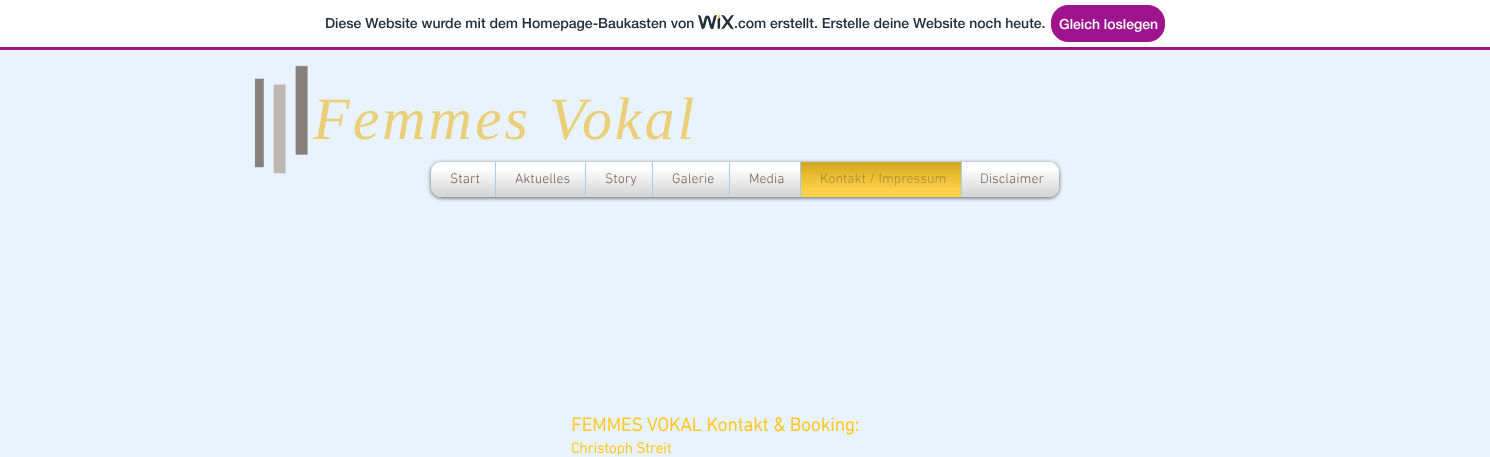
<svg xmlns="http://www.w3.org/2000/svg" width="1490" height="457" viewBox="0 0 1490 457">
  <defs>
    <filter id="blur1" x="-50%" y="-200%" width="200%" height="500%"><feGaussianBlur stdDeviation="2"/></filter>
  </defs>
  <rect width="100%" height="100%" fill="#ffffff"/>
  <rect x="0" y="47" width="1490" height="3" fill="#a0138e"/>
  <text x="325" y="28" font-family="'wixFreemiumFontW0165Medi'" font-size="14" font-weight="500" fill="#20303c">Diese Website wurde mit dem Homepage-Baukasten von</text>
  <image x="698" y="15" width="36" height="15" href="img1.png"/>
  <text x="734" y="28" font-family="'wixFreemiumFontW0165Medi'" font-size="14" font-weight="500" fill="#20303c">.com erstellt. Erstelle deine Website noch heute.</text>
  <rect x="1051.5" y="5.5" width="113" height="36" rx="16.5" fill="#a0138e" stroke="#a0138e"/>
  <text x="1059" y="29" font-family="'wixFreemiumFontW0165Medi'" font-size="14" font-weight="500" fill="#ffffff">Gleich loslegen</text>
  <rect x="0" y="50" width="1490" height="407" fill="#e8f3fd"/>
  <image x="255" y="65" width="53" height="109" href="img2.png"/>
  <text x="313" y="139" font-family="Liberation Serif" font-size="60" font-style="italic" letter-spacing="3" fill="#ebce78">Femmes Vokal</text>
  <rect x="431" y="163" width="628" height="35" rx="10" fill="#000000" fill-opacity="0.6" filter="url(#blur1)"/>
  <image x="431" y="187" width="628" height="10" href="img3.png"/>
  <path d="M441 162H495V197H441C435.5 197 431 192.5 431 187V172C431 166.5 435.5 162 441 162Z" fill="#ffffff"/>
  <text x="450" y="183" font-family="'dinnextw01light'" font-size="14" font-weight="300" fill="#635a56">Start</text>
  <image x="451" y="173" width="29" height="10" href="img4.png"/>
  <image x="431" y="171" width="64" height="26" href="img5.png"/>
  <rect x="496" y="162" width="89" height="35" fill="#ffffff"/>
  <rect x="495" y="162" width="1" height="35" fill="#a2cdf5"/>
  <text x="515" y="183" font-family="'dinnextw01light'" font-size="14" font-weight="300" fill="#635a56">Aktuelles</text>
  <image x="515" y="173" width="54" height="10" href="img6.png"/>
  <image x="496" y="171" width="89" height="26" href="img7.png"/>
  <rect x="586" y="162" width="66" height="35" fill="#ffffff"/>
  <rect x="585" y="162" width="1" height="35" fill="#a2cdf5"/>
  <text x="605" y="183" font-family="'dinnextw01light'" font-size="14" font-weight="300" fill="#635a56">Story</text>
  <image x="606" y="173" width="31" height="13" href="img8.png"/>
  <image x="586" y="171" width="66" height="26" href="img9.png"/>
  <rect x="653" y="162" width="76" height="35" fill="#ffffff"/>
  <rect x="652" y="162" width="1" height="35" fill="#a2cdf5"/>
  <text x="672" y="183" font-family="'dinnextw01light'" font-size="14" font-weight="300" fill="#635a56">Galerie</text>
  <image x="672" y="173" width="41" height="10" href="img10.png"/>
  <image x="653" y="171" width="76" height="26" href="img11.png"/>
  <rect x="730" y="162" width="70" height="35" fill="#ffffff"/>
  <rect x="729" y="162" width="1" height="35" fill="#a2cdf5"/>
  <text x="749" y="183" font-family="'dinnextw01light'" font-size="14" font-weight="300" fill="#635a56">Media</text>
  <image x="750" y="173" width="34" height="10" href="img12.png"/>
  <image x="730" y="171" width="70" height="26" href="img13.png"/>
  <rect x="801" y="162" width="160" height="35" fill="#ffc824"/>
  <rect x="800" y="162" width="1" height="35" fill="#a2cdf5"/>
  <text x="820" y="183" font-family="'dinnextw01light'" font-size="14" font-weight="300" fill="#aa8924">Kontakt / Impressum</text>
  <image x="801" y="162" width="160" height="26" href="img14.png"/>
  <image x="801" y="164" width="160" height="33" href="img15.png"/>
  <path d="M961 162H1049C1054.5 162 1059 166.5 1059 172V187C1059 192.5 1054.5 197 1049 197H961Z" fill="#ffffff"/>
  <rect x="961" y="162" width="1" height="35" fill="#a2cdf5"/>
  <text x="980" y="183" font-family="'dinnextw01light'" font-size="14" font-weight="300" fill="#635a56">Disclaimer</text>
  <image x="981" y="173" width="63" height="10" href="img16.png"/>
  <image x="962" y="171" width="97" height="26" href="img17.png"/>
  <text x="571" y="431" font-family="'dinnextw01light'" font-size="19" font-weight="bold" fill="#ffc824">FEMMES VOKAL Kontakt &amp; Booking:</text>
  <text x="571" y="453" font-family="'dinnextw01light'" font-size="15" font-weight="bold" fill="#ffc824">Christoph Streit</text>
</svg>
